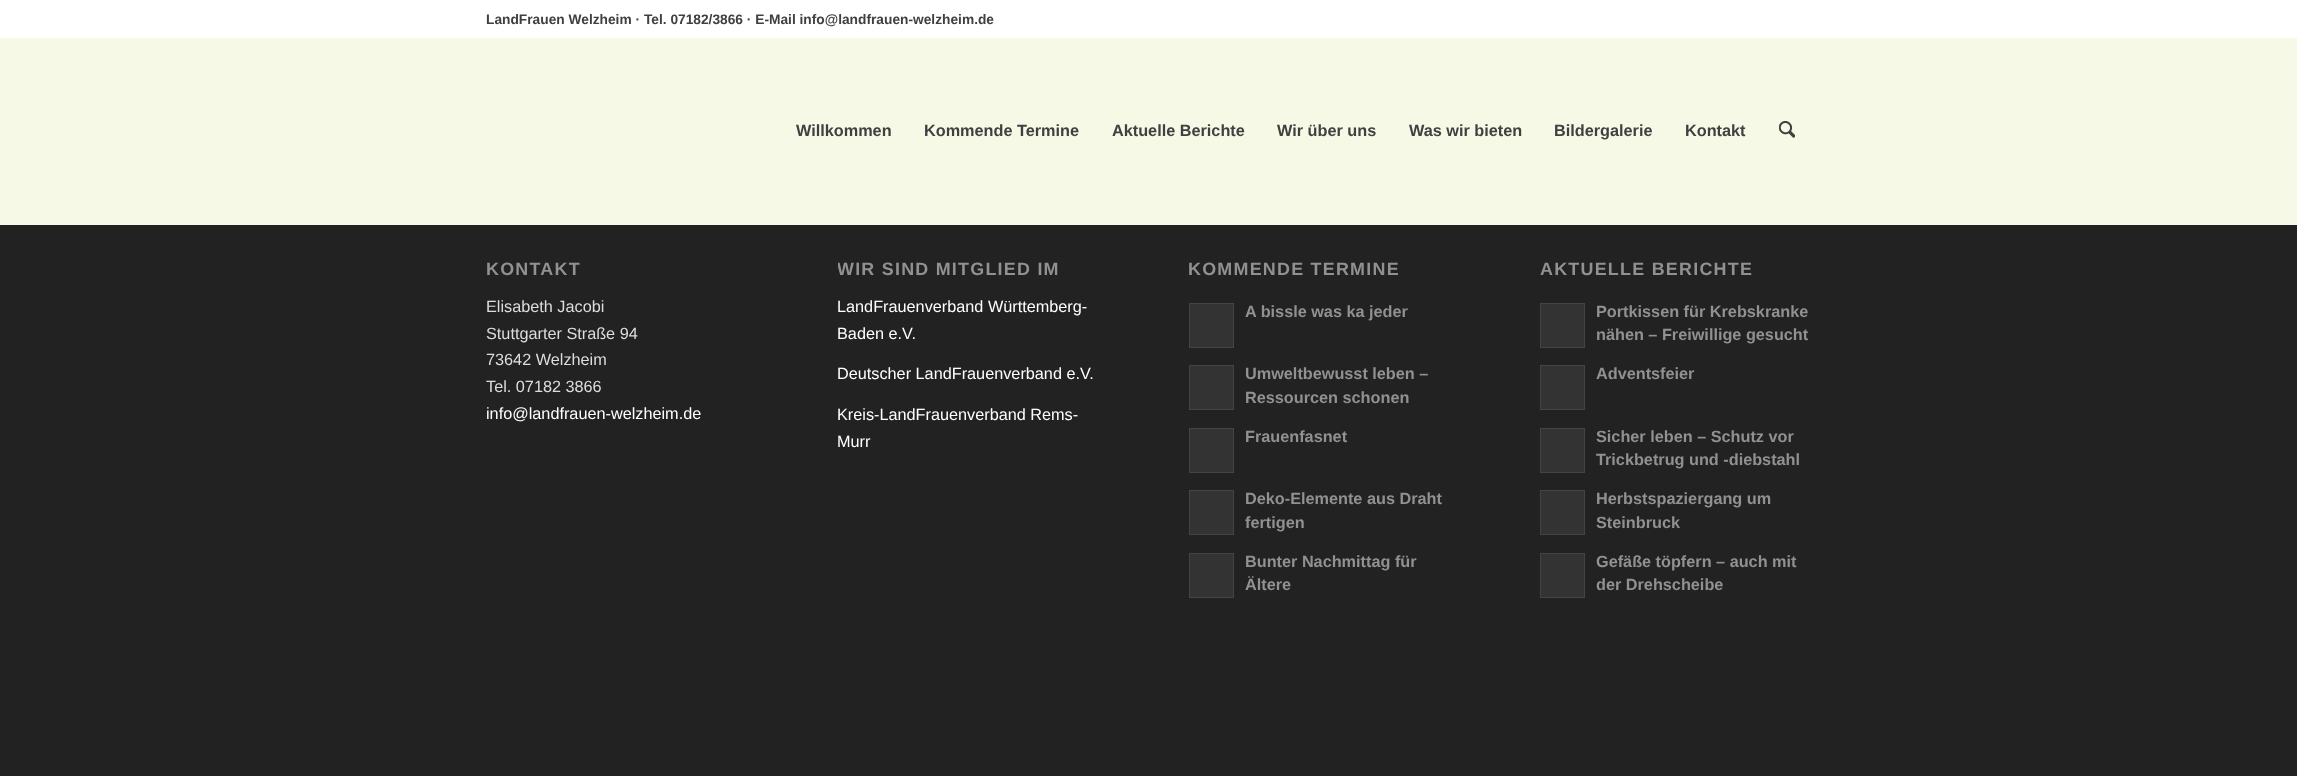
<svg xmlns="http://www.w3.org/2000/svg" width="2297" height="776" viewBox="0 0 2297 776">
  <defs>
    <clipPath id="clip1"><rect x="838" y="245" width="271" height="265"/></clipPath>
  </defs>
  <rect width="100%" height="100%" fill="#222222"/>
  <rect x="0" y="0" width="2297" height="38" fill="#ffffff"/>
  <text x="486" y="24" font-family="Liberation Sans" font-size="13.75" font-weight="bold" fill="#404040">LandFrauen Welzheim · Tel. 07182/3866 · E-Mail info@landfrauen-welzheim.de</text>
  <rect x="0" y="38" width="2297" height="187" fill="#f5f9e5"/>
  <text x="796" y="136" font-family="Liberation Sans" font-size="16.25" font-weight="bold" fill="#404040">Willkommen</text>
  <text x="924" y="136" font-family="Liberation Sans" font-size="16.25" font-weight="bold" fill="#404040">Kommende Termine</text>
  <text x="1112" y="136" font-family="Liberation Sans" font-size="16.25" font-weight="bold" fill="#404040">Aktuelle Berichte</text>
  <text x="1277" y="136" font-family="Liberation Sans" font-size="16.25" font-weight="bold" fill="#404040">Wir über uns</text>
  <text x="1409" y="136" font-family="Liberation Sans" font-size="16.25" font-weight="bold" fill="#404040">Was wir bieten</text>
  <text x="1554" y="136" font-family="Liberation Sans" font-size="16.25" font-weight="bold" fill="#404040">Bildergalerie</text>
  <text x="1685" y="136" font-family="Liberation Sans" font-size="16.25" font-weight="bold" fill="#404040">Kontakt</text>
  <image x="1779" y="121" width="16" height="17" href="img1.png"/>
  <text x="486" y="275" font-family="Liberation Sans" font-size="17.9" font-weight="bold" letter-spacing="1.25" fill="#919191">KONTAKT</text>
  <text x="486" y="312" font-family="Liberation Sans" font-size="16.25" fill="#dddddd">Elisabeth Jacobi</text>
  <text x="486" y="339" font-family="Liberation Sans" font-size="16.25" fill="#dddddd">Stuttgarter Straße 94</text>
  <text x="486" y="365" font-family="Liberation Sans" font-size="16.25" fill="#dddddd">73642 Welzheim</text>
  <text x="486" y="392" font-family="Liberation Sans" font-size="16.25" fill="#dddddd">Tel. 07182 3866</text>
  <text x="486" y="419" font-family="Liberation Sans" font-size="16.25" fill="#ffffff">info@landfrauen-welzheim.de</text>
  <g clip-path="url(#clip1)">
    <text x="837" y="275" font-family="Liberation Sans" font-size="17.9" font-weight="bold" letter-spacing="1.25" fill="#919191">WIR SIND MITGLIED IM</text>
  </g>
  <text x="837" y="312" font-family="Liberation Sans" font-size="16.25" fill="#ffffff">LandFrauenverband Württemberg-</text>
  <text x="837" y="339" font-family="Liberation Sans" font-size="16.25" fill="#ffffff">Baden e.V.</text>
  <text x="837" y="379" font-family="Liberation Sans" font-size="16.25" fill="#ffffff">Deutscher LandFrauenverband e.V.</text>
  <text x="837" y="420" font-family="Liberation Sans" font-size="16.25" fill="#ffffff">Kreis-LandFrauenverband Rems-</text>
  <text x="837" y="447" font-family="Liberation Sans" font-size="16.25" fill="#ffffff">Murr</text>
  <text x="1188" y="275" font-family="Liberation Sans" font-size="17.9" font-weight="bold" letter-spacing="1.25" fill="#919191">KOMMENDE TERMINE</text>
  <rect x="1189.5" y="303.5" width="44" height="44" fill="#333333" stroke="#444444"/>
  <text x="1245" y="317" font-family="Liberation Sans" font-size="16.25" font-weight="bold" fill="#919191">A bissle was ka jeder</text>
  <rect x="1189.5" y="365.5" width="44" height="44" fill="#333333" stroke="#444444"/>
  <text x="1245" y="379" font-family="Liberation Sans" font-size="16.25" font-weight="bold" fill="#919191">Umweltbewusst leben –</text>
  <text x="1245" y="403" font-family="Liberation Sans" font-size="16.25" font-weight="bold" fill="#919191">Ressourcen schonen</text>
  <rect x="1189.5" y="428.5" width="44" height="44" fill="#333333" stroke="#444444"/>
  <text x="1245" y="442" font-family="Liberation Sans" font-size="16.25" font-weight="bold" fill="#919191">Frauenfasnet</text>
  <rect x="1189.5" y="490.5" width="44" height="44" fill="#333333" stroke="#444444"/>
  <text x="1245" y="504" font-family="Liberation Sans" font-size="16.25" font-weight="bold" fill="#919191">Deko-Elemente aus Draht</text>
  <text x="1245" y="528" font-family="Liberation Sans" font-size="16.25" font-weight="bold" fill="#919191">fertigen</text>
  <rect x="1189.5" y="553.5" width="44" height="44" fill="#333333" stroke="#444444"/>
  <text x="1245" y="567" font-family="Liberation Sans" font-size="16.25" font-weight="bold" fill="#919191">Bunter Nachmittag für</text>
  <text x="1245" y="590" font-family="Liberation Sans" font-size="16.25" font-weight="bold" fill="#919191">Ältere</text>
  <text x="1540" y="275" font-family="Liberation Sans" font-size="17.9" font-weight="bold" letter-spacing="1.25" fill="#919191">AKTUELLE BERICHTE</text>
  <rect x="1540.5" y="303.5" width="44" height="44" fill="#333333" stroke="#444444"/>
  <text x="1596" y="317" font-family="Liberation Sans" font-size="16.25" font-weight="bold" fill="#919191">Portkissen für Krebskranke</text>
  <text x="1596" y="340" font-family="Liberation Sans" font-size="16.25" font-weight="bold" fill="#919191">nähen – Freiwillige gesucht</text>
  <rect x="1540.5" y="365.5" width="44" height="44" fill="#333333" stroke="#444444"/>
  <text x="1596" y="379" font-family="Liberation Sans" font-size="16.25" font-weight="bold" fill="#919191">Adventsfeier</text>
  <rect x="1540.5" y="428.5" width="44" height="44" fill="#333333" stroke="#444444"/>
  <text x="1596" y="442" font-family="Liberation Sans" font-size="16.25" font-weight="bold" fill="#919191">Sicher leben – Schutz vor</text>
  <text x="1596" y="465" font-family="Liberation Sans" font-size="16.25" font-weight="bold" fill="#919191">Trickbetrug und -diebstahl</text>
  <rect x="1540.5" y="490.5" width="44" height="44" fill="#333333" stroke="#444444"/>
  <text x="1596" y="504" font-family="Liberation Sans" font-size="16.25" font-weight="bold" fill="#919191">Herbstspaziergang um</text>
  <text x="1596" y="528" font-family="Liberation Sans" font-size="16.25" font-weight="bold" fill="#919191">Steinbruck</text>
  <rect x="1540.5" y="553.5" width="44" height="44" fill="#333333" stroke="#444444"/>
  <text x="1596" y="567" font-family="Liberation Sans" font-size="16.25" font-weight="bold" fill="#919191">Gefäße töpfern – auch mit</text>
  <text x="1596" y="590" font-family="Liberation Sans" font-size="16.25" font-weight="bold" fill="#919191">der Drehscheibe</text>
</svg>
